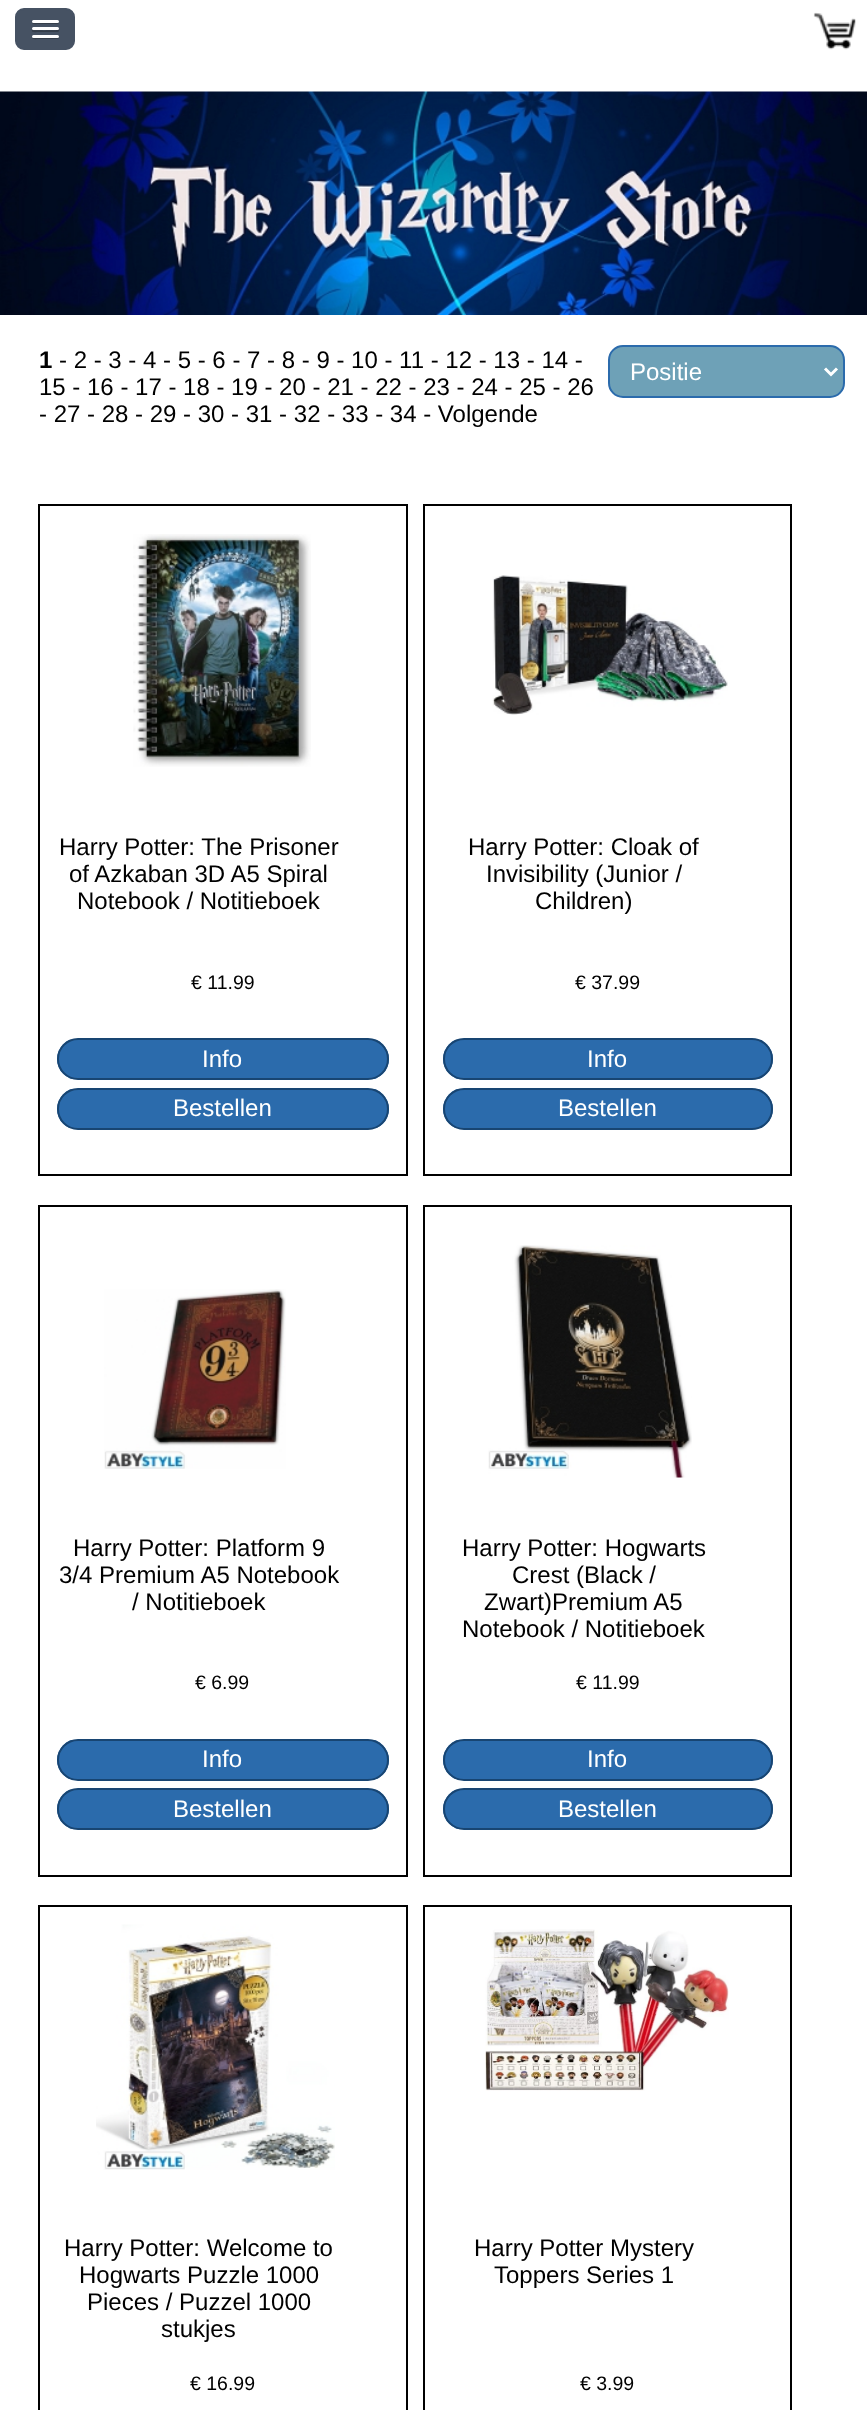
<svg xmlns="http://www.w3.org/2000/svg" width="867" height="2410" viewBox="0 0 867 2410">
  <defs>
    <clipPath id="clip1"><rect x="57" y="1038" width="332" height="42" rx="21"/></clipPath>
    <clipPath id="clip2"><rect x="57" y="1088" width="332" height="42" rx="21"/></clipPath>
    <clipPath id="clip3"><rect x="443" y="1038" width="330" height="42" rx="21"/></clipPath>
    <clipPath id="clip4"><rect x="443" y="1088" width="330" height="42" rx="21"/></clipPath>
    <clipPath id="clip5"><rect x="57" y="1739" width="332" height="42" rx="21"/></clipPath>
    <clipPath id="clip6"><rect x="57" y="1788" width="332" height="42" rx="21"/></clipPath>
    <clipPath id="clip7"><rect x="443" y="1739" width="330" height="42" rx="21"/></clipPath>
    <clipPath id="clip8"><rect x="443" y="1788" width="330" height="42" rx="21"/></clipPath>
  </defs>
  <rect width="100%" height="100%" fill="#ffffff"/>
  <rect x="16" y="9" width="58" height="40" rx="8" fill="#465263" stroke="#465263" stroke-width="2"/>
  <path d="M32 22C31.5 25 37 24 37.5 24H57.5C59 24 59.5 22 58.5 21.5L57.5 22.5C56 23 32.5 22.5 32 22Z" fill="#353e4a"/>
  <rect x="32" y="20" width="27" height="3" rx="1.5" fill="#ffffff"/>
  <path d="M32 30C30.5 33 37.5 32 37.5 32H58C59 31.5 59.5 30 58.5 29L57 30C55 30.5 33 30.5 32 30Z" fill="#353e4a"/>
  <rect x="32" y="27" width="27" height="3" rx="1.5" fill="#ffffff"/>
  <path d="M32 37C31.5 40 37 39 37.5 39H57.5C59 39 59.5 37 58.5 36.5L57.5 37.5C56 38 32.5 37.5 32 37Z" fill="#353e4a"/>
  <rect x="32" y="35" width="27" height="3" rx="1.5" fill="#ffffff"/>
  <image x="813" y="12" width="43" height="38" href="img1.png"/>
  <image x="0" y="91" width="867" height="224" href="img2.png"/>
  <text x="39" y="368" font-family="Liberation Sans" font-size="24" font-weight="bold" fill="#000000">1</text>
  <text x="59" y="368" font-family="Liberation Sans" font-size="24" fill="#000000">- 2 - 3 - 4 - 5 - 6 - 7 - 8 - 9 - 10 - 11 - 12 - 13 - 14 -</text>
  <text x="39" y="395" font-family="Liberation Sans" font-size="24" fill="#000000">15 - 16 - 17 - 18 - 19 - 20 - 21 - 22 - 23 - 24 - 25 - 26</text>
  <text x="39" y="422" font-family="Liberation Sans" font-size="24" fill="#000000">- 27 - 28 - 29 - 30 - 31 - 32 - 33 - 34 - Volgende</text>
  <rect x="609" y="346" width="235" height="51" rx="14" fill="#6ea1b7" stroke="#2b6bac" stroke-width="2"/>
  <path d="M825 368.5L831 374.5L837 368.5" fill="none" stroke="#ffffff" stroke-width="3"/>
  <text x="630" y="380" font-family="Liberation Sans" font-size="24" fill="#ffffff">Positie</text>
  <rect x="39" y="505" width="368" height="670" fill="none" stroke="#000000" stroke-width="2"/>
  <image x="133" y="534" width="178" height="233" href="img3.png"/>
  <text x="59" y="855" font-family="Liberation Sans" font-size="24" fill="#000000">Harry Potter: The Prisoner</text>
  <text x="69" y="882" font-family="Liberation Sans" font-size="24" fill="#000000">of Azkaban 3D A5 Spiral</text>
  <text x="77" y="909" font-family="Liberation Sans" font-size="24" fill="#000000">Notebook / Notitieboek</text>
  <text x="191" y="989" font-family="Liberation Sans" font-size="19.5" fill="#000000">€ 11.99</text>
  <g clip-path="url(#clip1)">
    <rect x="57" y="1040" width="332" height="39" fill="#2b6bac"/>
  </g>
  <rect x="58" y="1039" width="330" height="40" rx="20" fill="none" stroke="#184572" stroke-width="2"/>
  <text x="202" y="1067" font-family="Liberation Sans" font-size="24" fill="#ffffff">Info</text>
  <g clip-path="url(#clip2)">
    <rect x="57" y="1089" width="332" height="39" fill="#2b6bac"/>
  </g>
  <rect x="58" y="1089" width="330" height="40" rx="20" fill="none" stroke="#184572" stroke-width="2"/>
  <text x="173" y="1116" font-family="Liberation Sans" font-size="24" fill="#ffffff">Bestellen</text>
  <rect x="424" y="505" width="367" height="670" fill="none" stroke="#000000" stroke-width="2"/>
  <image x="492" y="575" width="236" height="140" href="img4.png"/>
  <text x="468" y="855" font-family="Liberation Sans" font-size="24" fill="#000000">Harry Potter: Cloak of</text>
  <text x="486" y="882" font-family="Liberation Sans" font-size="24" fill="#000000">Invisibility (Junior /</text>
  <text x="535" y="909" font-family="Liberation Sans" font-size="24" fill="#000000">Children)</text>
  <text x="575" y="989" font-family="Liberation Sans" font-size="19.5" fill="#000000">€ 37.99</text>
  <g clip-path="url(#clip3)">
    <rect x="443" y="1040" width="330" height="39" fill="#2b6bac"/>
  </g>
  <rect x="444" y="1039" width="328" height="40" rx="20" fill="none" stroke="#184572" stroke-width="2"/>
  <text x="587" y="1067" font-family="Liberation Sans" font-size="24" fill="#ffffff">Info</text>
  <g clip-path="url(#clip4)">
    <rect x="443" y="1089" width="330" height="39" fill="#2b6bac"/>
  </g>
  <rect x="444" y="1089" width="328" height="40" rx="20" fill="none" stroke="#184572" stroke-width="2"/>
  <text x="558" y="1116" font-family="Liberation Sans" font-size="24" fill="#ffffff">Bestellen</text>
  <rect x="39" y="1206" width="368" height="670" fill="none" stroke="#000000" stroke-width="2"/>
  <image x="104" y="1289" width="182" height="180" href="img5.png"/>
  <text x="73" y="1556" font-family="Liberation Sans" font-size="24" fill="#000000">Harry Potter: Platform 9</text>
  <text x="59" y="1583" font-family="Liberation Sans" font-size="24" fill="#000000">3/4 Premium A5 Notebook</text>
  <text x="132" y="1610" font-family="Liberation Sans" font-size="24" fill="#000000">/ Notitieboek</text>
  <text x="195" y="1689" font-family="Liberation Sans" font-size="19.5" fill="#000000">€ 6.99</text>
  <g clip-path="url(#clip5)">
    <rect x="57" y="1740" width="332" height="39" fill="#2b6bac"/>
  </g>
  <rect x="58" y="1740" width="330" height="40" rx="20" fill="none" stroke="#184572" stroke-width="2"/>
  <text x="202" y="1767" font-family="Liberation Sans" font-size="24" fill="#ffffff">Info</text>
  <g clip-path="url(#clip6)">
    <rect x="57" y="1790" width="332" height="39" fill="#2b6bac"/>
  </g>
  <rect x="58" y="1789" width="330" height="40" rx="20" fill="none" stroke="#184572" stroke-width="2"/>
  <text x="173" y="1817" font-family="Liberation Sans" font-size="24" fill="#ffffff">Bestellen</text>
  <rect x="424" y="1206" width="367" height="670" fill="none" stroke="#000000" stroke-width="2"/>
  <image x="488" y="1245" width="204" height="233" href="img6.png"/>
  <text x="462" y="1556" font-family="Liberation Sans" font-size="24" fill="#000000">Harry Potter: Hogwarts</text>
  <text x="512" y="1583" font-family="Liberation Sans" font-size="24" fill="#000000">Crest (Black /</text>
  <text x="484" y="1610" font-family="Liberation Sans" font-size="24" fill="#000000">Zwart)Premium A5</text>
  <text x="462" y="1637" font-family="Liberation Sans" font-size="24" fill="#000000">Notebook / Notitieboek</text>
  <text x="576" y="1689" font-family="Liberation Sans" font-size="19.5" fill="#000000">€ 11.99</text>
  <g clip-path="url(#clip7)">
    <rect x="443" y="1740" width="330" height="39" fill="#2b6bac"/>
  </g>
  <rect x="444" y="1740" width="328" height="40" rx="20" fill="none" stroke="#184572" stroke-width="2"/>
  <text x="587" y="1767" font-family="Liberation Sans" font-size="24" fill="#ffffff">Info</text>
  <g clip-path="url(#clip8)">
    <rect x="443" y="1790" width="330" height="39" fill="#2b6bac"/>
  </g>
  <rect x="444" y="1789" width="328" height="40" rx="20" fill="none" stroke="#184572" stroke-width="2"/>
  <text x="558" y="1817" font-family="Liberation Sans" font-size="24" fill="#ffffff">Bestellen</text>
  <rect x="39" y="1906" width="368" height="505" fill="none" stroke="#000000" stroke-width="2"/>
  <image x="96" y="1924" width="239" height="246" href="img7.png"/>
  <text x="64" y="2256" font-family="Liberation Sans" font-size="24" fill="#000000">Harry Potter: Welcome to</text>
  <text x="79" y="2283" font-family="Liberation Sans" font-size="24" fill="#000000">Hogwarts Puzzle 1000</text>
  <text x="87" y="2310" font-family="Liberation Sans" font-size="24" fill="#000000">Pieces / Puzzel 1000</text>
  <text x="161" y="2337" font-family="Liberation Sans" font-size="24" fill="#000000">stukjes</text>
  <text x="190" y="2390" font-family="Liberation Sans" font-size="19.5" fill="#000000">€ 16.99</text>
  <rect x="424" y="1906" width="367" height="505" fill="none" stroke="#000000" stroke-width="2"/>
  <image x="485" y="1929" width="244" height="162" href="img8.png"/>
  <text x="474" y="2256" font-family="Liberation Sans" font-size="24" fill="#000000">Harry Potter Mystery</text>
  <text x="494" y="2283" font-family="Liberation Sans" font-size="24" fill="#000000">Toppers Series 1</text>
  <text x="580" y="2390" font-family="Liberation Sans" font-size="19.5" fill="#000000">€ 3.99</text>
</svg>
